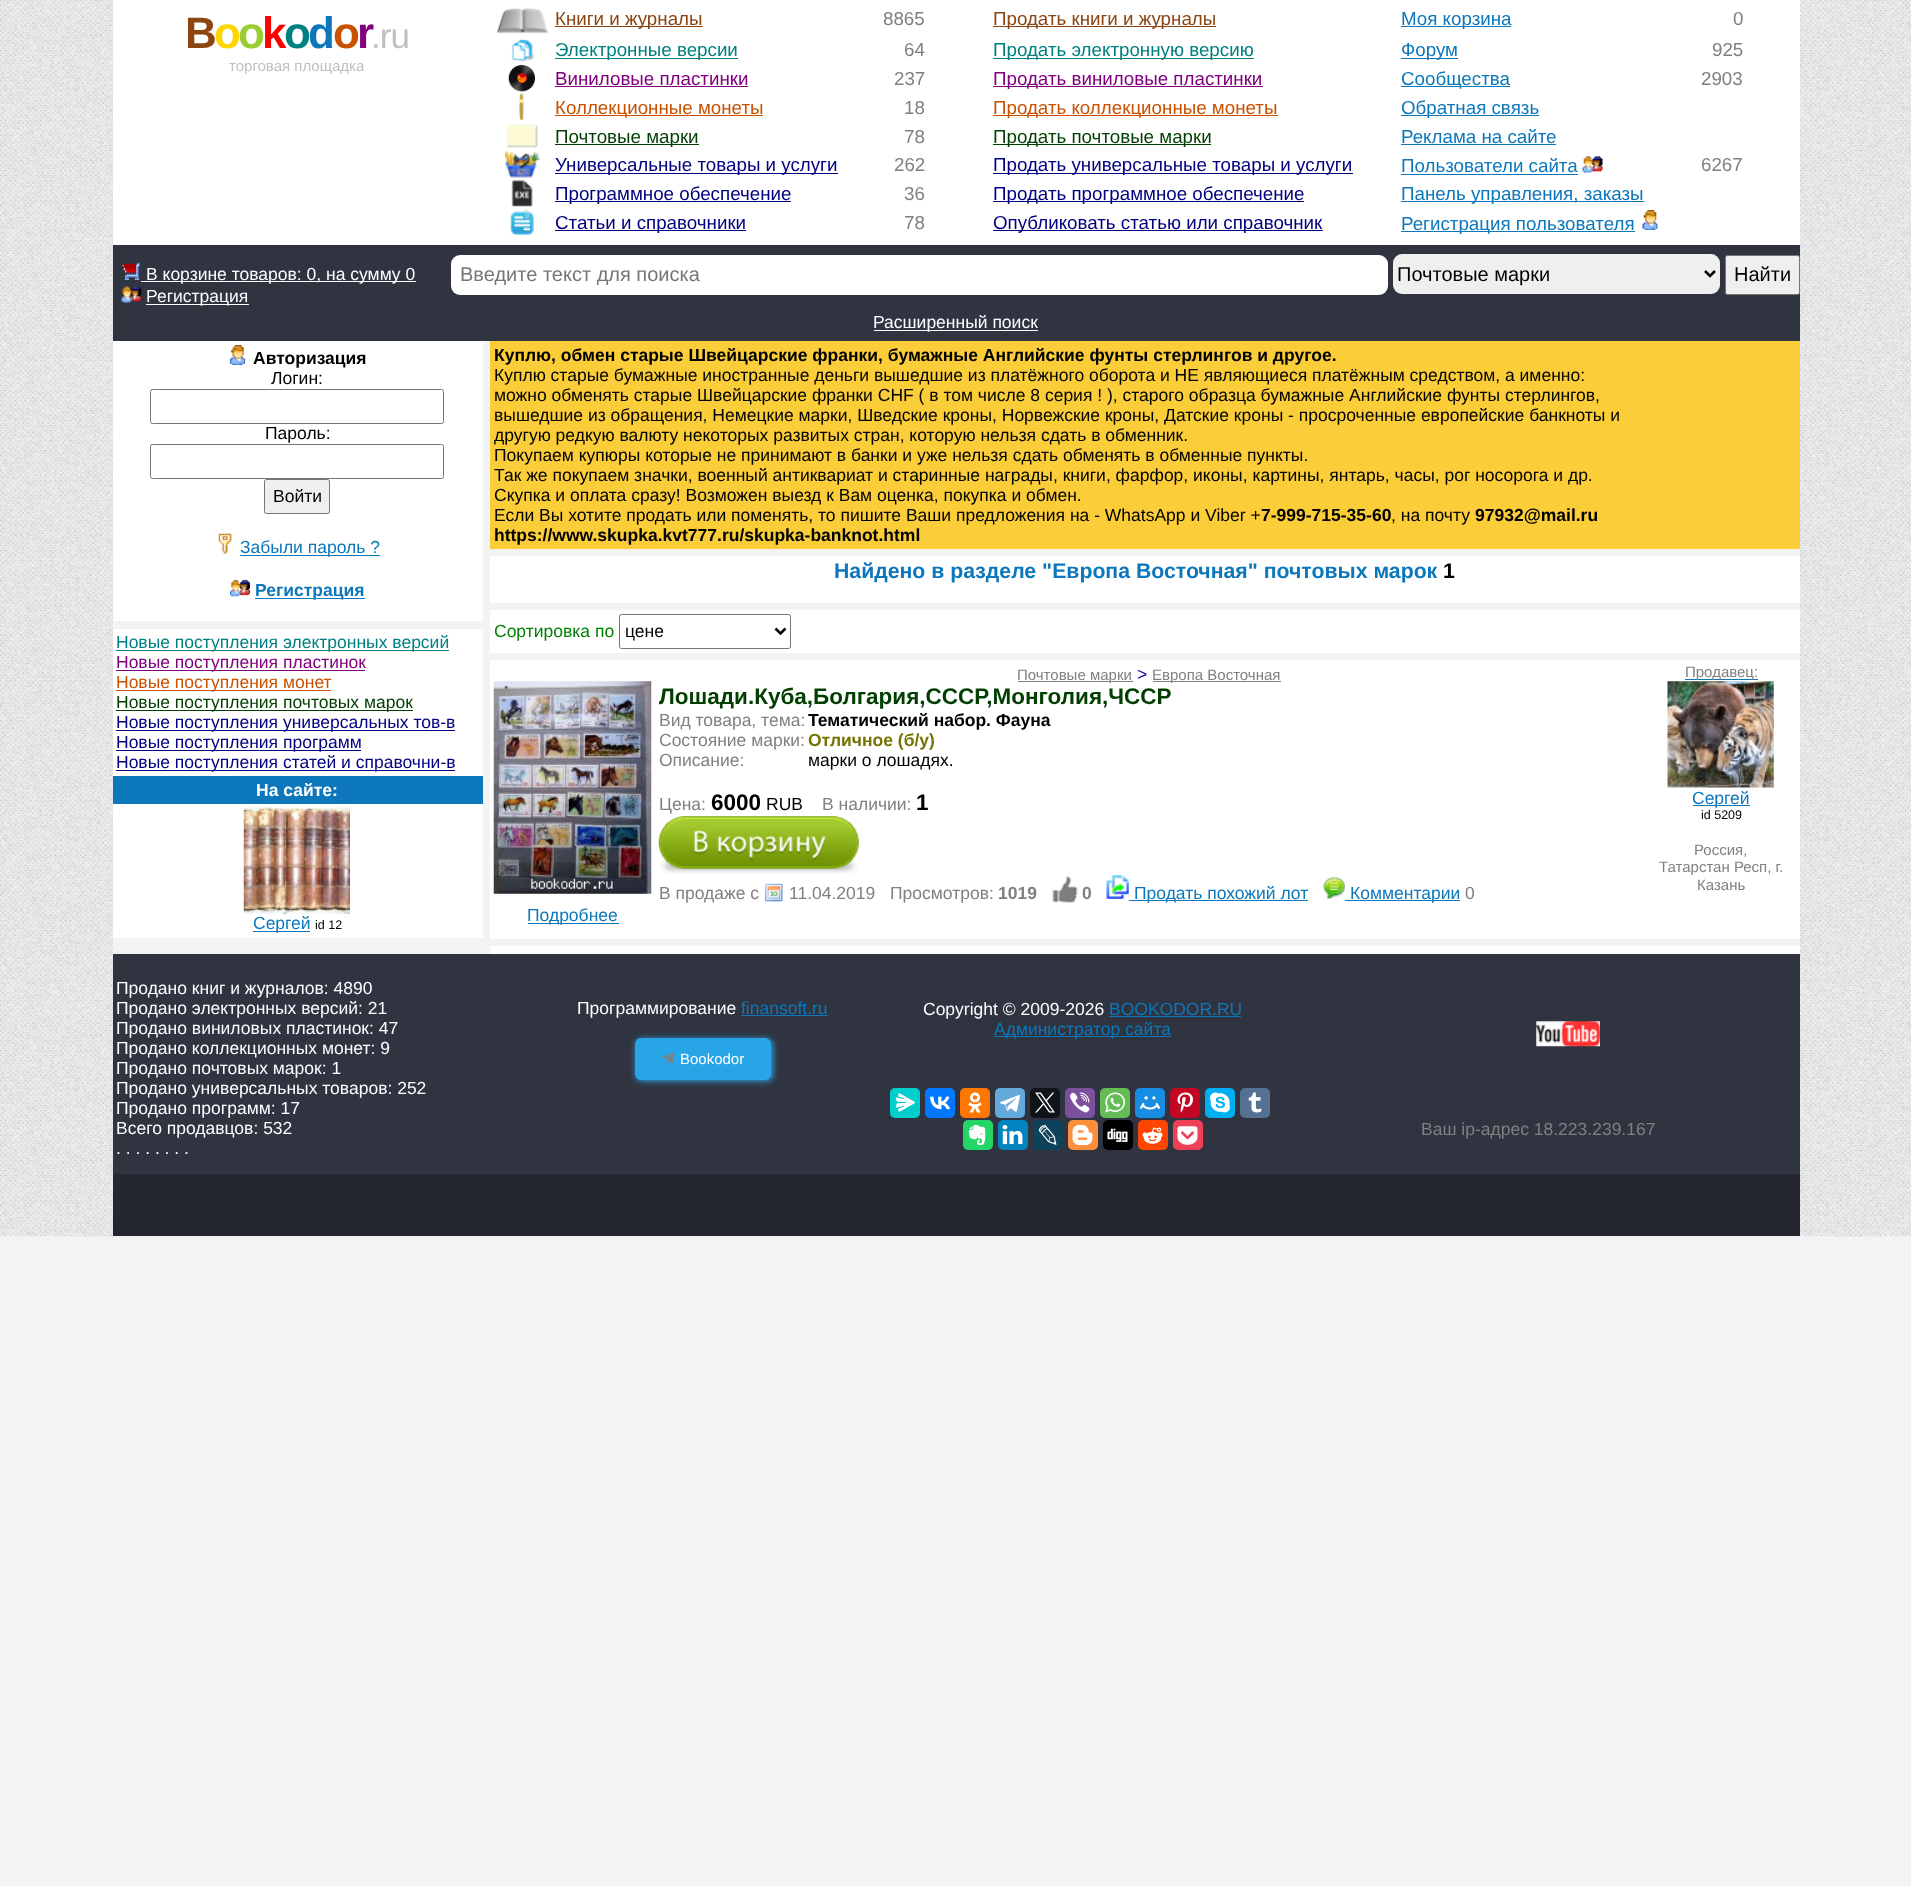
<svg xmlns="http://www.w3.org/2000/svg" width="1911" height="1886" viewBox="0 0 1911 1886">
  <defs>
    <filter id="blur1" x="-50%" y="-200%" width="200%" height="500%"><feGaussianBlur stdDeviation="3"/></filter>
  </defs>
  <rect width="100%" height="100%" fill="#f3f3f3"/>
  <image x="0" y="0" width="1911" height="1237" href="img1.png"/>
  <rect x="113" y="0" width="1687" height="245" fill="#ffffff"/>
  <text x="185" y="48" font-family="Liberation Sans" font-size="44" font-weight="bold" letter-spacing="-2" fill="#8b4513">B</text>
  <text x="214" y="48" font-family="Liberation Sans" font-size="44" font-weight="bold" letter-spacing="-2" fill="#ffd700">o</text>
  <text x="238" y="48" font-family="Liberation Sans" font-size="44" font-weight="bold" letter-spacing="-2" fill="#9acd32">o</text>
  <text x="262" y="48" font-family="Liberation Sans" font-size="44" font-weight="bold" letter-spacing="-2" fill="#ff0000">k</text>
  <text x="284" y="48" font-family="Liberation Sans" font-size="44" font-weight="bold" letter-spacing="-2" fill="#008080">o</text>
  <text x="308" y="48" font-family="Liberation Sans" font-size="44" font-weight="bold" letter-spacing="-2" fill="#0c77bb">d</text>
  <text x="333" y="48" font-family="Liberation Sans" font-size="44" font-weight="bold" letter-spacing="-2" fill="#c95100">o</text>
  <text x="357" y="48" font-family="Liberation Sans" font-size="44" font-weight="bold" letter-spacing="-2" fill="#800080">r</text>
  <text x="371" y="48" font-family="Liberation Sans" font-size="35" letter-spacing="-1" fill="#c0c0c0">.ru</text>
  <text x="229" y="71" font-family="Liberation Sans" font-size="15" fill="#c0c0c0">торговая площадка</text>
  <image x="496" y="8" width="53" height="26" href="img2.png"/>
  <rect x="555" y="26" width="148" height="1" fill="#8b4513"/>
  <text x="555" y="25" font-family="Liberation Sans" font-size="18.75" fill="#8b4513">Книги и журналы</text>
  <text x="883" y="25" font-family="Liberation Sans" font-size="18.75" fill="#808080">8865</text>
  <rect x="993" y="26" width="223" height="1" fill="#8b4513"/>
  <text x="993" y="25" font-family="Liberation Sans" font-size="18.75" fill="#8b4513">Продать книги и журналы</text>
  <rect x="1401" y="26" width="110" height="1" fill="#0c77bb"/>
  <text x="1401" y="25" font-family="Liberation Sans" font-size="18.75" fill="#0c77bb">Моя корзина</text>
  <text x="1733" y="25" font-family="Liberation Sans" font-size="18.75" fill="#808080">0</text>
  <image x="511" y="38" width="24" height="24" href="img3.png"/>
  <rect x="555" y="58" width="183" height="1" fill="#008080"/>
  <text x="555" y="56" font-family="Liberation Sans" font-size="18.75" fill="#008080">Электронные версии</text>
  <text x="904" y="56" font-family="Liberation Sans" font-size="18.75" fill="#808080">64</text>
  <rect x="993" y="58" width="261" height="1" fill="#008080"/>
  <text x="993" y="56" font-family="Liberation Sans" font-size="18.75" fill="#008080">Продать электронную версию</text>
  <rect x="1401" y="58" width="57" height="1" fill="#0c77bb"/>
  <text x="1401" y="56" font-family="Liberation Sans" font-size="18.75" fill="#0c77bb">Форум</text>
  <text x="1712" y="56" font-family="Liberation Sans" font-size="18.75" fill="#808080">925</text>
  <image x="508" y="65" width="27" height="27" href="img4.png"/>
  <text x="555" y="85" font-family="Liberation Sans" font-size="18.75" fill="#800080">Виниловые пластинки</text>
  <rect x="555" y="86" width="193" height="1" fill="#800080"/>
  <text x="894" y="85" font-family="Liberation Sans" font-size="18.75" fill="#808080">237</text>
  <rect x="993" y="86" width="270" height="1" fill="#800080"/>
  <text x="993" y="85" font-family="Liberation Sans" font-size="18.75" fill="#800080">Продать виниловые пластинки</text>
  <rect x="1401" y="86" width="109" height="1" fill="#0c77bb"/>
  <text x="1401" y="85" font-family="Liberation Sans" font-size="18.75" fill="#0c77bb">Сообщества</text>
  <text x="1701" y="85" font-family="Liberation Sans" font-size="18.75" fill="#808080">2903</text>
  <image x="519" y="93" width="5" height="27" href="img5.png"/>
  <rect x="555" y="115" width="208" height="1" fill="#c95100"/>
  <text x="555" y="114" font-family="Liberation Sans" font-size="18.75" fill="#c95100">Коллекционные монеты</text>
  <text x="904" y="114" font-family="Liberation Sans" font-size="18.75" fill="#808080">18</text>
  <rect x="993" y="115" width="285" height="1" fill="#c95100"/>
  <text x="993" y="114" font-family="Liberation Sans" font-size="18.75" fill="#c95100">Продать коллекционные монеты</text>
  <rect x="1401" y="115" width="138" height="1" fill="#0c77bb"/>
  <text x="1401" y="114" font-family="Liberation Sans" font-size="18.75" fill="#0c77bb">Обратная связь</text>
  <image x="506" y="124" width="32" height="24" href="img6.png"/>
  <rect x="555" y="144" width="144" height="1" fill="#003f00"/>
  <text x="555" y="143" font-family="Liberation Sans" font-size="18.75" fill="#003f00">Почтовые марки</text>
  <text x="904" y="143" font-family="Liberation Sans" font-size="18.75" fill="#808080">78</text>
  <rect x="993" y="144" width="218" height="1" fill="#003f00"/>
  <text x="993" y="143" font-family="Liberation Sans" font-size="18.75" fill="#003f00">Продать почтовые марки</text>
  <text x="1401" y="143" font-family="Liberation Sans" font-size="18.75" fill="#0c77bb">Реклама на сайте</text>
  <rect x="1401" y="144" width="155" height="1" fill="#0c77bb"/>
  <image x="505" y="151" width="35" height="27" href="img7.png"/>
  <rect x="555" y="173" width="283" height="1" fill="#000080"/>
  <text x="555" y="171" font-family="Liberation Sans" font-size="18.75" fill="#000080">Универсальные товары и услуги</text>
  <text x="894" y="171" font-family="Liberation Sans" font-size="18.75" fill="#808080">262</text>
  <rect x="993" y="173" width="360" height="1" fill="#000080"/>
  <text x="993" y="171" font-family="Liberation Sans" font-size="18.75" fill="#000080">Продать универсальные товары и услуги</text>
  <text x="1401" y="172" font-family="Liberation Sans" font-size="18.75" fill="#0c77bb">Пользователи сайта</text>
  <rect x="1401" y="174" width="177" height="1" fill="#0c77bb"/>
  <image x="1582" y="156" width="21" height="17" href="img8.png"/>
  <text x="1701" y="171" font-family="Liberation Sans" font-size="18.75" fill="#808080">6267</text>
  <image x="511" y="180" width="22" height="27" href="img9.png"/>
  <rect x="555" y="201" width="236" height="1" fill="#000080"/>
  <text x="555" y="200" font-family="Liberation Sans" font-size="18.75" fill="#000080">Программное обеспечение</text>
  <text x="904" y="200" font-family="Liberation Sans" font-size="18.75" fill="#808080">36</text>
  <rect x="993" y="201" width="311" height="1" fill="#000080"/>
  <text x="993" y="200" font-family="Liberation Sans" font-size="18.75" fill="#000080">Продать программное обеспечение</text>
  <rect x="1401" y="201" width="243" height="1" fill="#0c77bb"/>
  <text x="1401" y="200" font-family="Liberation Sans" font-size="18.75" fill="#0c77bb">Панель управления, заказы</text>
  <image x="510" y="208" width="24" height="27" href="img10.png"/>
  <rect x="555" y="230" width="191" height="1" fill="#000080"/>
  <text x="555" y="229" font-family="Liberation Sans" font-size="18.75" fill="#000080">Статьи и справочники</text>
  <text x="904" y="229" font-family="Liberation Sans" font-size="18.75" fill="#808080">78</text>
  <rect x="993" y="230" width="330" height="1" fill="#000080"/>
  <text x="993" y="229" font-family="Liberation Sans" font-size="18.75" fill="#000080">Опубликовать статью или справочник</text>
  <rect x="1401" y="231" width="234" height="1" fill="#0c77bb"/>
  <text x="1401" y="230" font-family="Liberation Sans" font-size="18.75" fill="#0c77bb">Регистрация пользователя</text>
  <image x="1642" y="210" width="16" height="20" href="img11.png"/>
  <rect x="113" y="245" width="1687" height="96" fill="#303441"/>
  <image x="122" y="262" width="19" height="18" href="img12.png"/>
  <rect x="141" y="281" width="275" height="1" fill="#f8ffff"/>
  <text x="146" y="280" font-family="Liberation Sans" font-size="17.5" fill="#f8ffff">В корзине товаров: 0, на сумму 0</text>
  <image x="121" y="286" width="21" height="17" href="img13.png"/>
  <rect x="146" y="304" width="103" height="1" fill="#f8ffff"/>
  <text x="146" y="302" font-family="Liberation Sans" font-size="17.5" fill="#f8ffff">Регистрация</text>
  <rect x="451" y="255" width="937" height="40" rx="9" fill="#ffffff"/>
  <text x="460" y="281" font-family="Liberation Sans" font-size="20" fill="#757575">Введите текст для поиска</text>
  <rect x="1393" y="254" width="327" height="40" rx="9" fill="#efefef"/>
  <path d="M1705 271L1710 276L1715 271" fill="none" stroke="#000000" stroke-width="2.5"/>
  <text x="1397" y="281" font-family="Liberation Sans" font-size="20" fill="#000000">Почтовые марки</text>
  <rect x="1725.5" y="255.5" width="74" height="39" rx="2" fill="#efefef" stroke="#767676"/>
  <text x="1734" y="281" font-family="Liberation Sans" font-size="20" fill="#000000">Найти</text>
  <rect x="874" y="330" width="164" height="1" fill="#f8ffff"/>
  <text x="873" y="328" font-family="Liberation Sans" font-size="17.5" fill="#f8ffff">Расширенный поиск</text>
  <rect x="113" y="341" width="377" height="613" fill="#f3f3f3"/>
  <rect x="113" y="341" width="370" height="280" fill="#ffffff"/>
  <image x="229" y="345" width="17" height="20" href="img14.png"/>
  <text x="253" y="364" font-family="Liberation Sans" font-size="17.5" font-weight="bold" fill="#000000">Авторизация</text>
  <text x="271" y="384" font-family="Liberation Sans" font-size="17.5" fill="#000000">Логин:</text>
  <rect x="150.5" y="389.5" width="293" height="34" rx="2" fill="none" stroke="#767676"/>
  <text x="265" y="439" font-family="Liberation Sans" font-size="17.5" fill="#000000">Пароль:</text>
  <rect x="150.5" y="444.5" width="293" height="34" rx="2" fill="none" stroke="#767676"/>
  <rect x="264.5" y="479.5" width="65" height="34" rx="2" fill="#efefef" stroke="#767676"/>
  <text x="273" y="502" font-family="Liberation Sans" font-size="17.5" fill="#000000">Войти</text>
  <image x="218" y="533" width="14" height="21" href="img15.png"/>
  <rect x="240" y="555" width="140" height="1" fill="#0c77bb"/>
  <text x="240" y="553" font-family="Liberation Sans" font-size="17.5" fill="#0c77bb">Забыли пароль ?</text>
  <image x="230" y="579" width="20" height="18" href="img16.png"/>
  <rect x="255" y="598" width="110" height="1" fill="#0c77bb"/>
  <text x="255" y="596" font-family="Liberation Sans" font-size="17.5" font-weight="bold" fill="#0c77bb">Регистрация</text>
  <rect x="113" y="629" width="370" height="147" fill="#ffffff"/>
  <rect x="116" y="650" width="333" height="1" fill="#008080"/>
  <text x="116" y="648" font-family="Liberation Sans" font-size="17.5" fill="#008080">Новые поступления электронных версий</text>
  <rect x="116" y="670" width="249" height="1" fill="#800080"/>
  <text x="116" y="668" font-family="Liberation Sans" font-size="17.5" fill="#800080">Новые поступления пластинок</text>
  <rect x="116" y="690" width="215" height="1" fill="#c95100"/>
  <text x="116" y="688" font-family="Liberation Sans" font-size="17.5" fill="#c95100">Новые поступления монет</text>
  <rect x="116" y="710" width="297" height="1" fill="#003f00"/>
  <text x="116" y="708" font-family="Liberation Sans" font-size="17.5" fill="#003f00">Новые поступления почтовых марок</text>
  <rect x="116" y="730" width="339" height="1" fill="#000080"/>
  <text x="116" y="728" font-family="Liberation Sans" font-size="17.5" fill="#000080">Новые поступления универсальных тов-в</text>
  <rect x="116" y="750" width="245" height="1" fill="#000080"/>
  <text x="116" y="748" font-family="Liberation Sans" font-size="17.5" fill="#000080">Новые поступления программ</text>
  <rect x="116" y="770" width="339" height="1" fill="#000080"/>
  <text x="116" y="768" font-family="Liberation Sans" font-size="17.5" fill="#000080">Новые поступления статей и справочни-в</text>
  <rect x="113" y="776" width="370" height="28" fill="#0c77bb"/>
  <text x="256" y="796" font-family="Liberation Sans" font-size="17.5" font-weight="bold" fill="#ffffff">На сайте:</text>
  <rect x="113" y="804" width="370" height="134" fill="#ffffff"/>
  <image x="243" y="807" width="107" height="107" href="img17.png"/>
  <rect x="253" y="931" width="57" height="1" fill="#0c77bb"/>
  <text x="253" y="929" font-family="Liberation Sans" font-size="17.5" fill="#0c77bb">Сергей</text>
  <text x="315" y="929" font-family="Liberation Sans" font-size="12.5" fill="#000000">id 12</text>
  <rect x="490" y="341" width="1310" height="208" fill="#facd39"/>
  <text x="494" y="361" font-family="Liberation Sans" font-size="17.5" font-weight="bold" fill="#000000">Куплю, обмен старые Швейцарские франки, бумажные Английские фунты стерлингов и другое.</text>
  <text x="494" y="381" font-family="Liberation Sans" font-size="17.5" fill="#000000">Куплю старые бумажные иностранные деньги вышедшие из платёжного оборота и НЕ являющиеся платёжным средством, а именно:</text>
  <text x="494" y="401" font-family="Liberation Sans" font-size="17.5" fill="#000000">можно обменять старые Швейцарские франки CHF ( в том числе 8 серия ! ), старого образца бумажные Английские фунты стерлингов,</text>
  <text x="494" y="421" font-family="Liberation Sans" font-size="17.5" fill="#000000">вышедшие из обращения, Немецкие марки, Шведские кроны, Норвежские кроны, Датские кроны - просроченные европейские банкноты и</text>
  <text x="494" y="441" font-family="Liberation Sans" font-size="17.5" fill="#000000">другую редкую валюту некоторых развитых стран, которую нельзя сдать в обменник.</text>
  <text x="494" y="461" font-family="Liberation Sans" font-size="17.5" fill="#000000">Покупаем купюры которые не принимают в банки и уже нельзя сдать обменять в обменные пункты.</text>
  <text x="494" y="481" font-family="Liberation Sans" font-size="17.5" fill="#000000">Так же покупаем значки, военный антиквариат и старинные награды, книги, фарфор, иконы, картины, янтарь, часы, рог носорога и др.</text>
  <text x="494" y="501" font-family="Liberation Sans" font-size="17.5" fill="#000000">Скупка и оплата сразу! Возможен выезд к Вам оценка, покупка и обмен.</text>
  <text x="494" y="521" font-family="Liberation Sans" font-size="17.5" fill="#000000">Если Вы хотите продать или поменять, то пишите Ваши предложения на - WhatsApp и Viber +</text>
  <text x="1261" y="521" font-family="Liberation Sans" font-size="17.5" font-weight="bold" fill="#000000">7-999-715-35-60</text>
  <text x="1391" y="521" font-family="Liberation Sans" font-size="17.5" fill="#000000">, на почту</text>
  <text x="1475" y="521" font-family="Liberation Sans" font-size="17.5" font-weight="bold" fill="#000000">97932@mail.ru</text>
  <text x="494" y="541" font-family="Liberation Sans" font-size="17.5" font-weight="bold" fill="#000000">https://www.skupka.kvt777.ru/skupka-banknot.html</text>
  <rect x="490" y="549" width="1310" height="7" fill="#f3f3f3"/>
  <rect x="490" y="556" width="1310" height="47" fill="#ffffff"/>
  <text x="834" y="578" font-family="Liberation Sans" font-size="21.25" font-weight="bold" fill="#0c77bb">Найдено в разделе "Европа Восточная" почтовых марок</text>
  <text x="1443" y="578" font-family="Liberation Sans" font-size="21.25" font-weight="bold" fill="#000000">1</text>
  <rect x="490" y="610" width="1310" height="43" fill="#ffffff"/>
  <rect x="490" y="603" width="1310" height="7" fill="#f3f3f3"/>
  <text x="494" y="637" font-family="Liberation Sans" font-size="17.5" fill="#008000">Сортировка по</text>
  <rect x="619.5" y="614.5" width="171" height="34" rx="2" fill="none" stroke="#767676"/>
  <path d="M775.5 628.5L780.5 633.5L785.5 628.5" fill="none" stroke="#000000" stroke-width="2.5"/>
  <text x="625" y="637" font-family="Liberation Sans" font-size="17.5" fill="#000000">цене</text>
  <rect x="490" y="660" width="1310" height="279" fill="#ffffff"/>
  <rect x="490" y="653" width="1310" height="7" fill="#f3f3f3"/>
  <rect x="1018" y="681" width="115" height="1" fill="#808080"/>
  <text x="1017" y="680" font-family="Liberation Sans" font-size="15" fill="#808080">Почтовые марки</text>
  <text x="1137" y="680" font-family="Liberation Sans" font-size="17.5" fill="#0a00a0">&gt;</text>
  <rect x="1153" y="681" width="128" height="1" fill="#808080"/>
  <text x="1152" y="680" font-family="Liberation Sans" font-size="15" fill="#808080">Европа Восточная</text>
  <text x="659" y="704" font-family="Liberation Sans" font-size="22.5" font-weight="bold" fill="#003f00">Лошади.Куба,Болгария,СССР,Монголия,ЧССР</text>
  <text x="659" y="726" font-family="Liberation Sans" font-size="17.5" fill="#808080">Вид товара, тема:</text>
  <text x="808" y="726" font-family="Liberation Sans" font-size="17.5" font-weight="bold" fill="#000000">Тематический набор. Фауна</text>
  <text x="659" y="746" font-family="Liberation Sans" font-size="17.5" fill="#808080">Состояние марки:</text>
  <text x="808" y="746" font-family="Liberation Sans" font-size="17.5" font-weight="bold" fill="#747400">Отличное (б/у)</text>
  <text x="659" y="766" font-family="Liberation Sans" font-size="17.5" fill="#808080">Описание:</text>
  <text x="808" y="766" font-family="Liberation Sans" font-size="17.5" fill="#000000">марки о лошадях.</text>
  <text x="659" y="810" font-family="Liberation Sans" font-size="17.5" fill="#808080">Цена:</text>
  <text x="711" y="810" font-family="Liberation Sans" font-size="22.5" font-weight="bold" fill="#000000">6000</text>
  <text x="766" y="810" font-family="Liberation Sans" font-size="17.5" fill="#000000">RUB</text>
  <text x="822" y="810" font-family="Liberation Sans" font-size="17.5" fill="#808080">В наличии:</text>
  <text x="916" y="810" font-family="Liberation Sans" font-size="22.5" font-weight="bold" fill="#000000">1</text>
  <image x="658" y="816" width="201" height="58" href="img18.png"/>
  <text x="659" y="899" font-family="Liberation Sans" font-size="17.5" fill="#808080">В продаже с</text>
  <image x="764" y="883" width="19" height="19" href="img19.png"/>
  <text x="789" y="899" font-family="Liberation Sans" font-size="17.5" fill="#808080">11.04.2019</text>
  <text x="890" y="899" font-family="Liberation Sans" font-size="17.5" fill="#808080">Просмотров:</text>
  <text x="998" y="899" font-family="Liberation Sans" font-size="17.5" font-weight="bold" fill="#808080">1019</text>
  <image x="1052" y="876" width="26" height="27" href="img20.png"/>
  <text x="1082" y="899" font-family="Liberation Sans" font-size="17.5" font-weight="bold" fill="#808080">0</text>
  <image x="1106" y="875" width="23" height="24" href="img21.png"/>
  <rect x="1129" y="900" width="179" height="1" fill="#0c77bb"/>
  <text x="1134" y="899" font-family="Liberation Sans" font-size="17.5" fill="#0c77bb">Продать похожий лот</text>
  <image x="1322" y="876" width="23" height="23" href="img22.png"/>
  <rect x="1345" y="900" width="115" height="1" fill="#0c77bb"/>
  <text x="1350" y="899" font-family="Liberation Sans" font-size="17.5" fill="#0c77bb">Комментарии</text>
  <text x="1465" y="899" font-family="Liberation Sans" font-size="17.5" fill="#808080">0</text>
  <rect x="1685" y="679" width="73" height="1" fill="#0c77bb"/>
  <text x="1685" y="677" font-family="Liberation Sans" font-size="15" fill="#808080">Продавец:</text>
  <image x="1667" y="681" width="107" height="107" href="img23.png"/>
  <rect x="1693" y="805" width="57" height="1" fill="#0c77bb"/>
  <text x="1692" y="804" font-family="Liberation Sans" font-size="17.5" fill="#0c77bb">Сергей</text>
  <text x="1701" y="819" font-family="Liberation Sans" font-size="12.5" fill="#000000">id 5209</text>
  <text x="1694" y="855" font-family="Liberation Sans" font-size="15" fill="#808080">Россия,</text>
  <text x="1659" y="872" font-family="Liberation Sans" font-size="15" fill="#808080">Татарстан Респ, г.</text>
  <text x="1697" y="890" font-family="Liberation Sans" font-size="15" fill="#808080">Казань</text>
  <image x="493" y="681" width="159" height="213" href="img24.png"/>
  <rect x="528" y="923" width="91" height="1" fill="#0c77bb"/>
  <text x="527" y="921" font-family="Liberation Sans" font-size="17.5" fill="#0c77bb">Подробнее</text>
  <rect x="490" y="946" width="1310" height="8" fill="#ffffff"/>
  <rect x="490" y="939" width="1310" height="7" fill="#f3f3f3"/>
  <rect x="113" y="954" width="1687" height="220" fill="#303441"/>
  <text x="116" y="994" font-family="Liberation Sans" font-size="17.5" fill="#f8ffff">Продано книг и журналов: 4890</text>
  <text x="116" y="1014" font-family="Liberation Sans" font-size="17.5" fill="#f8ffff">Продано электронных версий: 21</text>
  <text x="116" y="1034" font-family="Liberation Sans" font-size="17.5" fill="#f8ffff">Продано виниловых пластинок: 47</text>
  <text x="116" y="1054" font-family="Liberation Sans" font-size="17.5" fill="#f8ffff">Продано коллекционных монет: 9</text>
  <text x="116" y="1074" font-family="Liberation Sans" font-size="17.5" fill="#f8ffff">Продано почтовых марок: 1</text>
  <text x="116" y="1094" font-family="Liberation Sans" font-size="17.5" fill="#f8ffff">Продано универсальных товаров: 252</text>
  <text x="116" y="1114" font-family="Liberation Sans" font-size="17.5" fill="#f8ffff">Продано программ: 17</text>
  <text x="116" y="1134" font-family="Liberation Sans" font-size="17.5" fill="#f8ffff">Всего продавцов: 532</text>
  <text x="116" y="1154" font-family="Liberation Sans" font-size="17.5" fill="#ffffff">. . . . . . . .</text>
  <text x="577" y="1014" font-family="Liberation Sans" font-size="17.5" fill="#f8ffff">Программирование</text>
  <text x="741" y="1014" font-family="Liberation Sans" font-size="17.5" fill="#0c77bb">finansoft.ru</text>
  <rect x="741" y="1015" width="87" height="1" fill="#0c77bb"/>
  <rect x="636" y="1039" width="137" height="42" rx="6" fill="#27a5e7" filter="url(#blur1)"/>
  <rect x="635" y="1038" width="136" height="42" rx="6" fill="#27a5e7"/>
  <image x="661" y="1052" width="14" height="12" href="img25.png"/>
  <text x="680" y="1064" font-family="Liberation Sans" font-size="15" fill="#ffffff">Bookodor</text>
  <text x="923" y="1015" font-family="Liberation Sans" font-size="17.5" fill="#f8ffff">Copyright © 2009-2026</text>
  <text x="1109" y="1015" font-family="Liberation Sans" font-size="17.5" fill="#0c77bb">BOOKODOR.RU</text>
  <rect x="1109" y="1016" width="132" height="1" fill="#0c77bb"/>
  <rect x="994" y="1036" width="177" height="1" fill="#0c77bb"/>
  <text x="994" y="1035" font-family="Liberation Sans" font-size="17.5" fill="#0c77bb">Администратор сайта</text>
  <image x="1536" y="1021" width="64" height="26" href="img26.png"/>
  <rect x="890" y="1088" width="30" height="30" rx="5" fill="#03cece"/>
  <image x="895" y="1093" width="20" height="19" href="img27.png"/>
  <rect x="925" y="1088" width="30" height="30" rx="5" fill="#0077ff"/>
  <image x="930" y="1096" width="20" height="14" href="img28.png"/>
  <rect x="960" y="1088" width="30" height="30" rx="5" fill="#ff7700"/>
  <image x="968" y="1092" width="14" height="21" href="img29.png"/>
  <rect x="995" y="1088" width="30" height="30" rx="5" fill="#64a9dc"/>
  <image x="1000" y="1095" width="20" height="17" href="img30.png"/>
  <rect x="1030" y="1088" width="30" height="30" rx="5" fill="#0f1419"/>
  <image x="1035" y="1092" width="20" height="21" href="img31.png"/>
  <rect x="1065" y="1088" width="30" height="30" rx="5" fill="#7b519d"/>
  <image x="1070" y="1092" width="20" height="21" href="img32.png"/>
  <rect x="1100" y="1088" width="30" height="30" rx="5" fill="#65bc54"/>
  <image x="1105" y="1092" width="20" height="21" href="img33.png"/>
  <rect x="1135" y="1088" width="30" height="30" rx="5" fill="#168de2"/>
  <image x="1140" y="1096" width="20" height="14" href="img34.png"/>
  <rect x="1170" y="1088" width="30" height="30" rx="5" fill="#c20724"/>
  <image x="1177" y="1092" width="16" height="21" href="img35.png"/>
  <rect x="1205" y="1088" width="30" height="30" rx="5" fill="#00aff0"/>
  <image x="1210" y="1092" width="20" height="21" href="img36.png"/>
  <rect x="1240" y="1088" width="30" height="30" rx="5" fill="#547093"/>
  <image x="1248" y="1092" width="14" height="21" href="img37.png"/>
  <rect x="963" y="1120" width="30" height="30" rx="5" fill="#24d666"/>
  <image x="968" y="1125" width="18" height="20" href="img38.png"/>
  <rect x="998" y="1120" width="30" height="30" rx="5" fill="#0083be"/>
  <image x="1002" y="1125" width="21" height="20" href="img39.png"/>
  <rect x="1033" y="1120" width="30" height="30" rx="5" fill="#0d425a"/>
  <image x="1038" y="1125" width="19" height="20" href="img40.png"/>
  <rect x="1068" y="1120" width="30" height="30" rx="5" fill="#fb8f3d"/>
  <image x="1072" y="1125" width="21" height="20" href="img41.png"/>
  <rect x="1103" y="1120" width="30" height="30" rx="5" fill="#000000"/>
  <image x="1107" y="1128" width="21" height="14" href="img42.png"/>
  <rect x="1138" y="1120" width="30" height="30" rx="5" fill="#ff4500"/>
  <image x="1142" y="1127" width="21" height="17" href="img43.png"/>
  <rect x="1173" y="1120" width="30" height="30" rx="5" fill="#ee4056"/>
  <image x="1177" y="1126" width="21" height="19" href="img44.png"/>
  <text x="1421" y="1135" font-family="Liberation Sans" font-size="17.5" fill="#808080">Ваш ip-адрес 18.223.239.167</text>
  <rect x="113" y="1174" width="1687" height="62" fill="#252730"/>
</svg>
